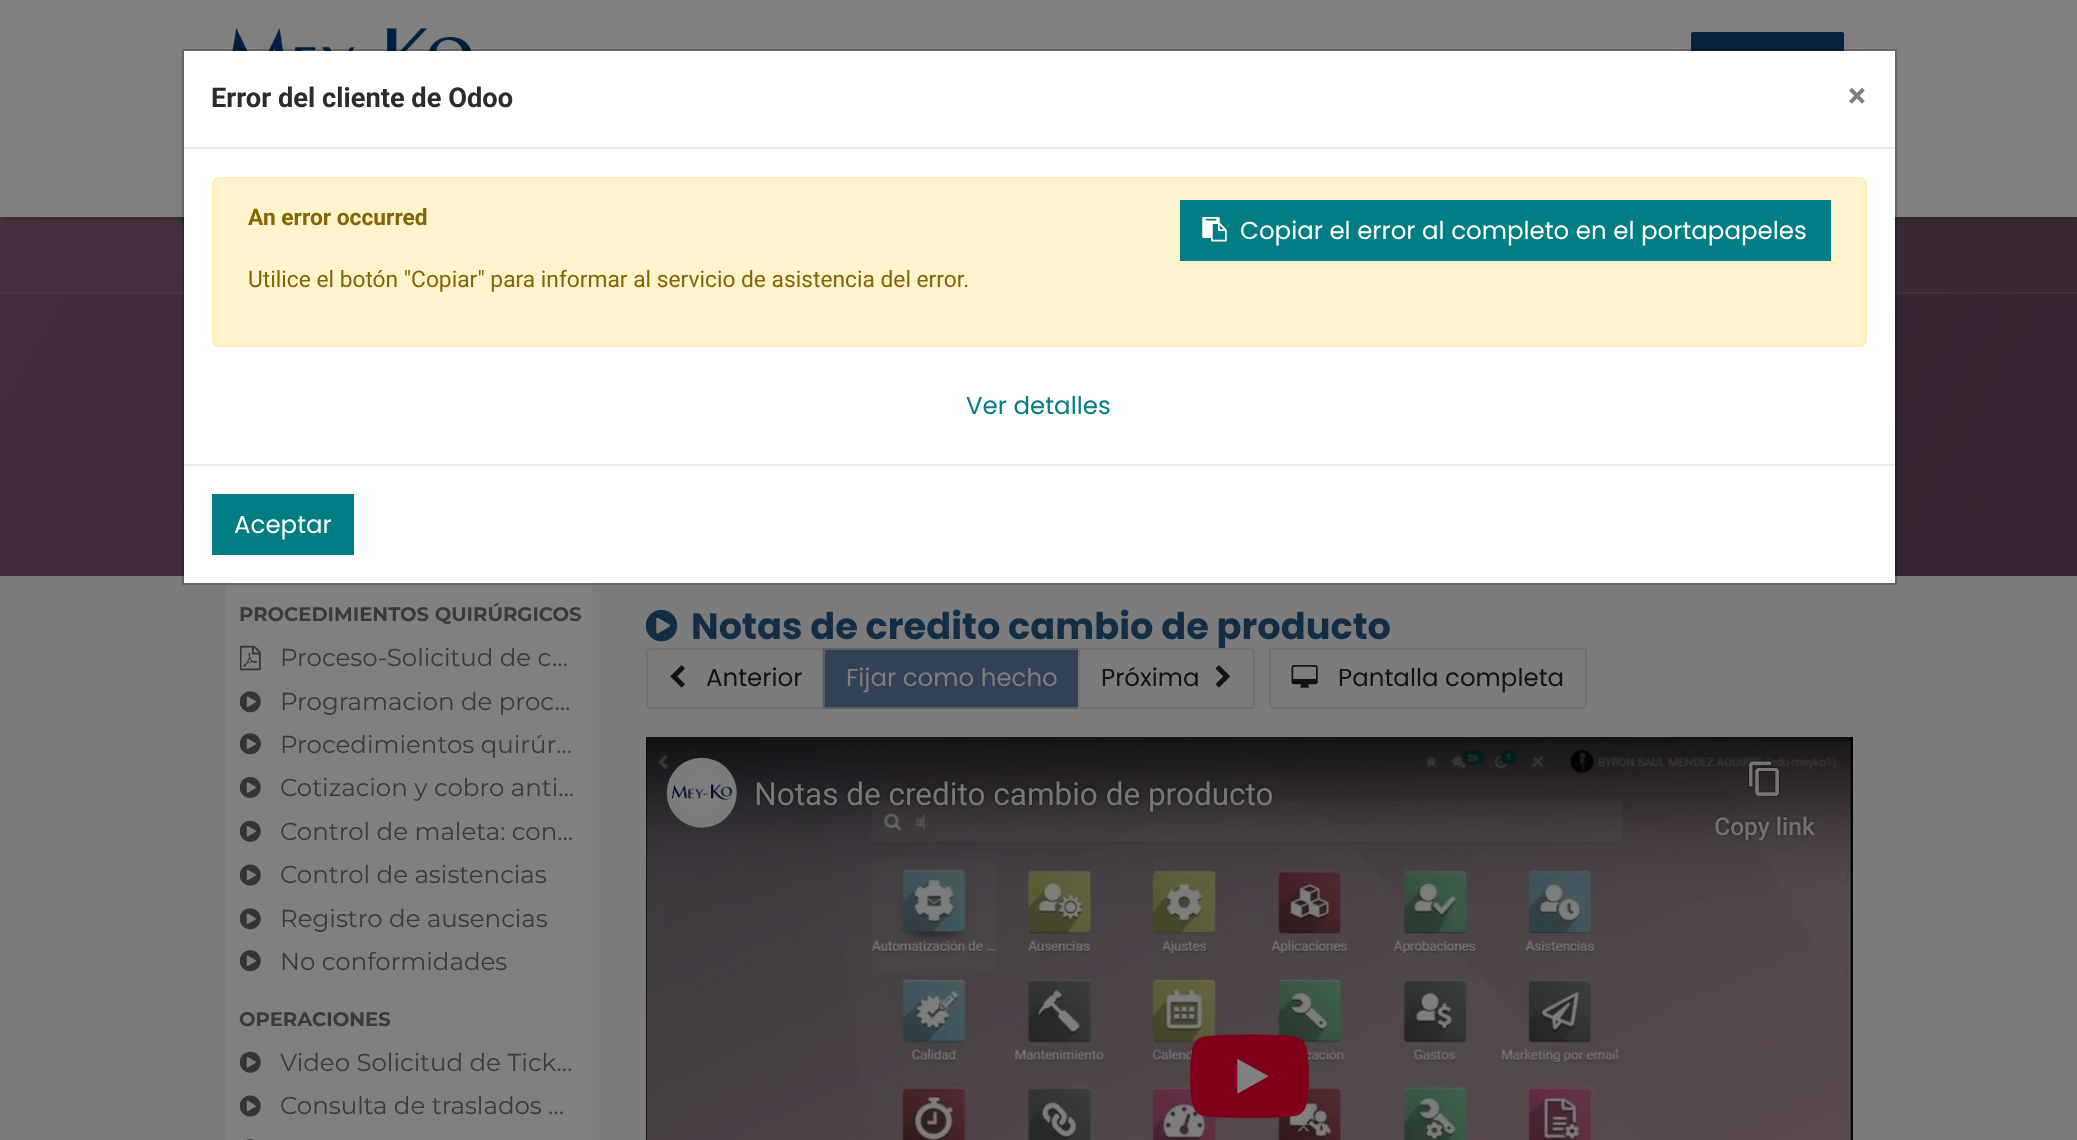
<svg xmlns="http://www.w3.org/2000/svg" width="2077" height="1140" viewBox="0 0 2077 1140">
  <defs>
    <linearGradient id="g1" gradientUnits="userSpaceOnUse" x1="182" y1="-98" x2="1895" y2="891"><stop offset="0" stop-color="#473141"/><stop offset="1" stop-color="#382834"/></linearGradient>
    <linearGradient id="g2" gradientUnits="userSpaceOnUse" x1="182" y1="-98" x2="1895" y2="891"><stop offset="0" stop-color="#4c3948"/><stop offset="1" stop-color="#3f313b"/></linearGradient>
    <filter id="blur1" x="-50%" y="-200%" width="200%" height="500%"><feGaussianBlur stdDeviation="4.5"/></filter>
    <linearGradient id="g3" gradientUnits="userSpaceOnUse" x1="182" y1="-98" x2="1895" y2="891"><stop offset="0" stop-color="#442d3e"/><stop offset="1" stop-color="#342330"/></linearGradient>
  </defs>
  <rect width="100%" height="100%" fill="#7c7c7d"/>
  <rect x="0" y="219" width="2077" height="73" fill="url(#g1)"/>
  <rect x="0" y="217" width="2077" height="2" fill="url(#g2)"/>
  <rect x="0" y="0" width="2077" height="217" fill="#000000" fill-opacity="0.5" filter="url(#blur1)"/>
  <rect x="0" y="0" width="2077" height="217" fill="#808080"/>
  <rect x="1690" y="31" width="155" height="59" rx="3" fill="#0a2240" stroke="#808080" stroke-width="2"/>
  <rect x="0" y="294" width="2077" height="282" fill="url(#g3)"/>
  <rect x="0" y="292" width="2077" height="2" fill="url(#g2)"/>
  <rect x="184" y="51" width="1711" height="532" fill="#ffffff"/>
  <image x="232" y="28" width="240" height="23" href="img2.png"/>
  <rect x="226" y="583" width="367" height="557" fill="#808080"/>
  <rect x="183" y="50" width="1713" height="534" fill="none" stroke="#000000" stroke-opacity="0.2" stroke-width="2"/>
  <rect x="184" y="147" width="1711" height="2" fill="#e9ecef"/>
  <text x="211" y="107" font-family="Roboto" font-size="27.25" font-weight="bold" fill="#2b2b33">Error del cliente de Odoo</text>
  <text x="1848" y="107" font-family="Roboto" font-size="34" font-weight="bold" fill="#7e7e7f">×</text>
  <rect x="213" y="178" width="1653" height="168" rx="6" fill="#fff3cd" stroke="#ffeeba" stroke-width="2"/>
  <text x="248" y="225" font-family="Roboto" font-size="22.75" font-weight="bold" fill="#856404">An error occurred</text>
  <rect x="1180" y="200" width="651" height="61" fill="#017e84"/>
  <image x="1202" y="217" width="25" height="25" href="img1.png"/>
  <text x="1240" y="239" font-family="Poppins" font-size="24.5" fill="#ffffff">Copiar el error al completo en el portapapeles</text>
  <text x="248" y="287" font-family="Roboto" font-size="22.75" fill="#856404">Utilice el botón "Copiar" para informar al servicio de asistencia del error.</text>
  <text x="966" y="414" font-family="Poppins" font-size="24.5" fill="#017e84">Ver detalles</text>
  <rect x="184" y="464" width="1711" height="2" fill="#e9ecef"/>
  <rect x="212" y="494" width="142" height="61" fill="#017e84"/>
  <text x="234" y="533" font-family="Poppins" font-size="24.5" fill="#ffffff">Aceptar</text>
  <text x="239" y="621" font-family="Montserrat" font-size="19.6" font-weight="bold" fill="#363b3f">PROCEDIMIENTOS QUIRÚRGICOS</text>
  <image x="240" y="645" width="21" height="26" href="img3.png"/>
  <text x="280" y="666" font-family="Montserrat" font-size="24.5" fill="#363b3f">Proceso-Solicitud de c…</text>
  <image x="240" y="691" width="21" height="22" href="img4.png"/>
  <text x="280" y="710" font-family="Montserrat" font-size="24.5" fill="#363b3f">Programacion de proc…</text>
  <image x="240" y="733" width="21" height="22" href="img4.png"/>
  <text x="280" y="753" font-family="Montserrat" font-size="24.5" fill="#363b3f">Procedimientos quirúr…</text>
  <image x="240" y="777" width="21" height="21" href="img5.png"/>
  <text x="280" y="796" font-family="Montserrat" font-size="24.5" fill="#363b3f">Cotizacion y cobro anti…</text>
  <image x="240" y="820" width="21" height="22" href="img6.png"/>
  <text x="280" y="840" font-family="Montserrat" font-size="24.5" fill="#363b3f">Control de maleta: con…</text>
  <image x="240" y="864" width="21" height="22" href="img7.png"/>
  <text x="280" y="883" font-family="Montserrat" font-size="24.5" fill="#363b3f">Control de asistencias</text>
  <image x="240" y="908" width="21" height="22" href="img4.png"/>
  <text x="280" y="927" font-family="Montserrat" font-size="24.5" fill="#363b3f">Registro de ausencias</text>
  <image x="240" y="950" width="21" height="22" href="img4.png"/>
  <text x="280" y="970" font-family="Montserrat" font-size="24.5" fill="#363b3f">No conformidades</text>
  <text x="239" y="1026" font-family="Montserrat" font-size="19.6" font-weight="bold" fill="#363b3f">OPERACIONES</text>
  <image x="240" y="1051" width="21" height="22" href="img6.png"/>
  <text x="280" y="1071" font-family="Montserrat" font-size="24.5" fill="#363b3f">Video Solicitud de Tick…</text>
  <image x="240" y="1095" width="21" height="22" href="img7.png"/>
  <text x="280" y="1114" font-family="Montserrat" font-size="24.5" fill="#363b3f">Consulta de traslados …</text>
  <image x="246" y="1139" width="8" height="1" href="img8.png"/>
  <image x="646" y="609" width="32" height="33" href="img9.png"/>
  <text x="691" y="639" font-family="Poppins" font-size="36.75" font-weight="bold" fill="#132d44">Notas de credito cambio de producto</text>
  <path d="M650 649H823V708H650C648.5 708 647 706.5 647 705V652C647 650.5 648.5 649 650 649Z" fill="none" stroke="#6f7173" stroke-width="2"/>
  <image x="670" y="665" width="15" height="23" href="img10.png"/>
  <text x="706" y="686" font-family="Poppins" font-size="24.5" fill="#111315">Anterior</text>
  <rect x="823" y="648" width="255" height="61" fill="#0a2240" fill-opacity="0.65"/>
  <rect x="824" y="649" width="255" height="59" fill="none" stroke="#6f7173" stroke-opacity="0.65" stroke-width="2"/>
  <text x="846" y="686" font-family="Poppins" font-size="24.5" fill="#7e7e7f">Fijar como hecho</text>
  <path d="M1079 649H1251C1252.5 649 1254 650.5 1254 652V705C1254 706.5 1252.5 708 1251 708H1079Z" fill="#7c7c7c" stroke="#6f7173" stroke-width="2"/>
  <text x="1101" y="686" font-family="Poppins" font-size="24.5" fill="#111315">Próxima</text>
  <image x="1215" y="665" width="15" height="23" href="img11.png"/>
  <rect x="1270" y="649" width="316" height="59" rx="3" fill="none" stroke="#6f7173" stroke-width="2"/>
  <image x="1291" y="665" width="27" height="23" href="img12.png"/>
  <text x="1338" y="686" font-family="Poppins" font-size="24.5" fill="#111315">Pantalla completa</text>
  <image x="646" y="737" width="1207" height="403" href="img13.png"/>
</svg>
